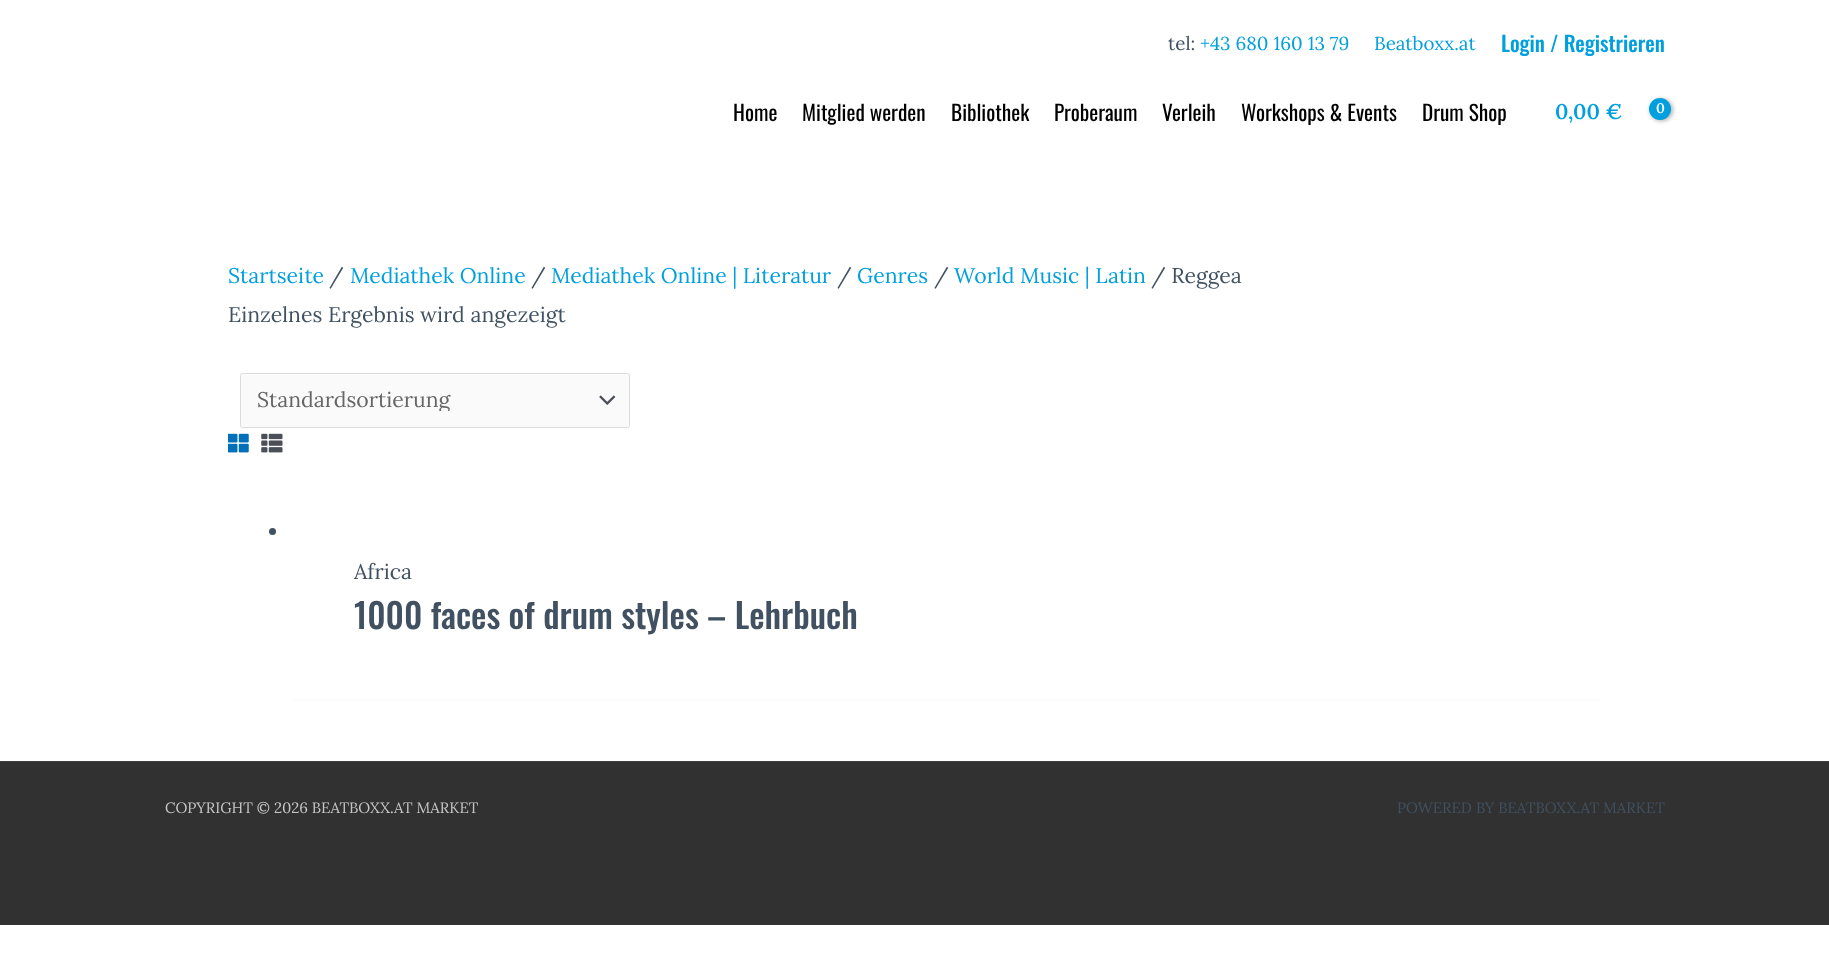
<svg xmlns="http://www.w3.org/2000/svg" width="1829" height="976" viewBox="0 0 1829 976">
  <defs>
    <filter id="blur1" x="-50%" y="-200%" width="200%" height="500%"><feGaussianBlur stdDeviation="2"/></filter>
    <clipPath id="clip1"><rect x="258" y="390" width="328" height="21"/></clipPath>
  </defs>
  <rect width="100%" height="100%" fill="#ffffff"/>
  <text x="1168" y="50" font-family="Lora" font-size="18.75" fill="#415161">tel:</text>
  <text x="1200" y="50" font-family="Lora" font-size="18.75" fill="#009fdd">+43 680 160 13 79</text>
  <text x="1374" y="50" font-family="Lora" font-size="18.75" fill="#009fdd">Beatboxx.at</text>
  <text x="1501" y="52" font-family="Oswald" font-size="21.25" font-weight="500" fill="#009fdd">Login / Registrieren</text>
  <text x="733" y="121" font-family="Oswald" font-size="21.25" fill="#000000">Home</text>
  <text x="802" y="121" font-family="Oswald" font-size="21.25" fill="#000000">Mitglied werden</text>
  <text x="951" y="121" font-family="Oswald" font-size="21.25" fill="#000000">Bibliothek</text>
  <text x="1054" y="121" font-family="Oswald" font-size="21.25" fill="#000000">Proberaum</text>
  <text x="1162" y="121" font-family="Oswald" font-size="21.25" fill="#000000">Verleih</text>
  <text x="1241" y="121" font-family="Oswald" font-size="21.25" fill="#000000">Workshops &amp; Events</text>
  <text x="1422" y="121" font-family="Oswald" font-size="21.25" fill="#000000">Drum Shop</text>
  <text x="1555" y="119" font-family="Lora" font-size="21.25" font-weight="600" fill="#009fdd">0,00 €</text>
  <rect x="1650" y="99" width="23" height="22" rx="11" fill="#000000" fill-opacity="0.3" filter="url(#blur1)"/>
  <circle cx="1660" cy="109" r="11" fill="#009fdd"/>
  <text x="1656" y="113" font-family="Lora" font-size="14" font-weight="600" letter-spacing="-1" fill="#ffffff">0</text>
  <text x="228" y="283" font-family="Lora" font-size="21.25" fill="#009fdd">Startseite</text>
  <text x="329" y="283" font-family="Lora" font-size="21.25" fill="#415161">/</text>
  <text x="350" y="283" font-family="Lora" font-size="21.25" fill="#009fdd">Mediathek Online</text>
  <text x="531" y="283" font-family="Lora" font-size="21.25" fill="#415161">/</text>
  <text x="551" y="283" font-family="Lora" font-size="21.25" fill="#009fdd">Mediathek Online | Literatur</text>
  <text x="837" y="283" font-family="Lora" font-size="21.25" fill="#415161">/</text>
  <text x="857" y="283" font-family="Lora" font-size="21.25" fill="#009fdd">Genres</text>
  <text x="934" y="283" font-family="Lora" font-size="21.25" fill="#415161">/</text>
  <text x="954" y="283" font-family="Lora" font-size="21.25" fill="#009fdd">World Music | Latin</text>
  <text x="1151" y="283" font-family="Lora" font-size="21.25" fill="#415161">/ Reggea</text>
  <text x="228" y="322" font-family="Lora" font-size="21.25" fill="#415161">Einzelnes Ergebnis wird angezeigt</text>
  <rect x="240" y="373" width="390" height="55" rx="2.5" fill="#fafafa"/>
  <image x="599" y="395" width="17" height="10" href="img1.png"/>
  <rect x="240.5" y="373.5" width="389" height="54" rx="2" fill="none" stroke="#dddddd"/>
  <g clip-path="url(#clip1)">
    <text x="257" y="407" font-family="Lora" font-size="21.25" fill="#666666">Standardsortierung</text>
  </g>
  <image x="228" y="433" width="21" height="20" href="img2.png"/>
  <image x="261" y="433" width="22" height="20" href="img3.png"/>
  <rect x="294" y="453" width="1306" height="245" fill="#000000" fill-opacity="0.1" filter="url(#blur1)"/>
  <rect x="291" y="450" width="1312" height="249" fill="#ffffff"/>
  <circle cx="272.5" cy="531.5" r="3.5" fill="#415161"/>
  <text x="354" y="579" font-family="Lora" font-size="21.25" fill="#415161">Africa</text>
  <text x="354" y="629" font-family="Oswald" font-size="34.5" font-weight="500" fill="#415161">1000 faces of drum styles – Lehrbuch</text>
  <rect x="0" y="762" width="1829" height="163" fill="#313131"/>
  <rect x="0" y="761" width="1829" height="1" fill="#3f3f3f"/>
  <text x="165" y="813" font-family="Lora" font-size="15" fill="#c6c6c6">COPYRIGHT © 2026 BEATBOXX.AT MARKET</text>
  <text x="1397" y="813" font-family="Lora" font-size="15" fill="#415161">POWERED BY BEATBOXX.AT MARKET</text>
</svg>
